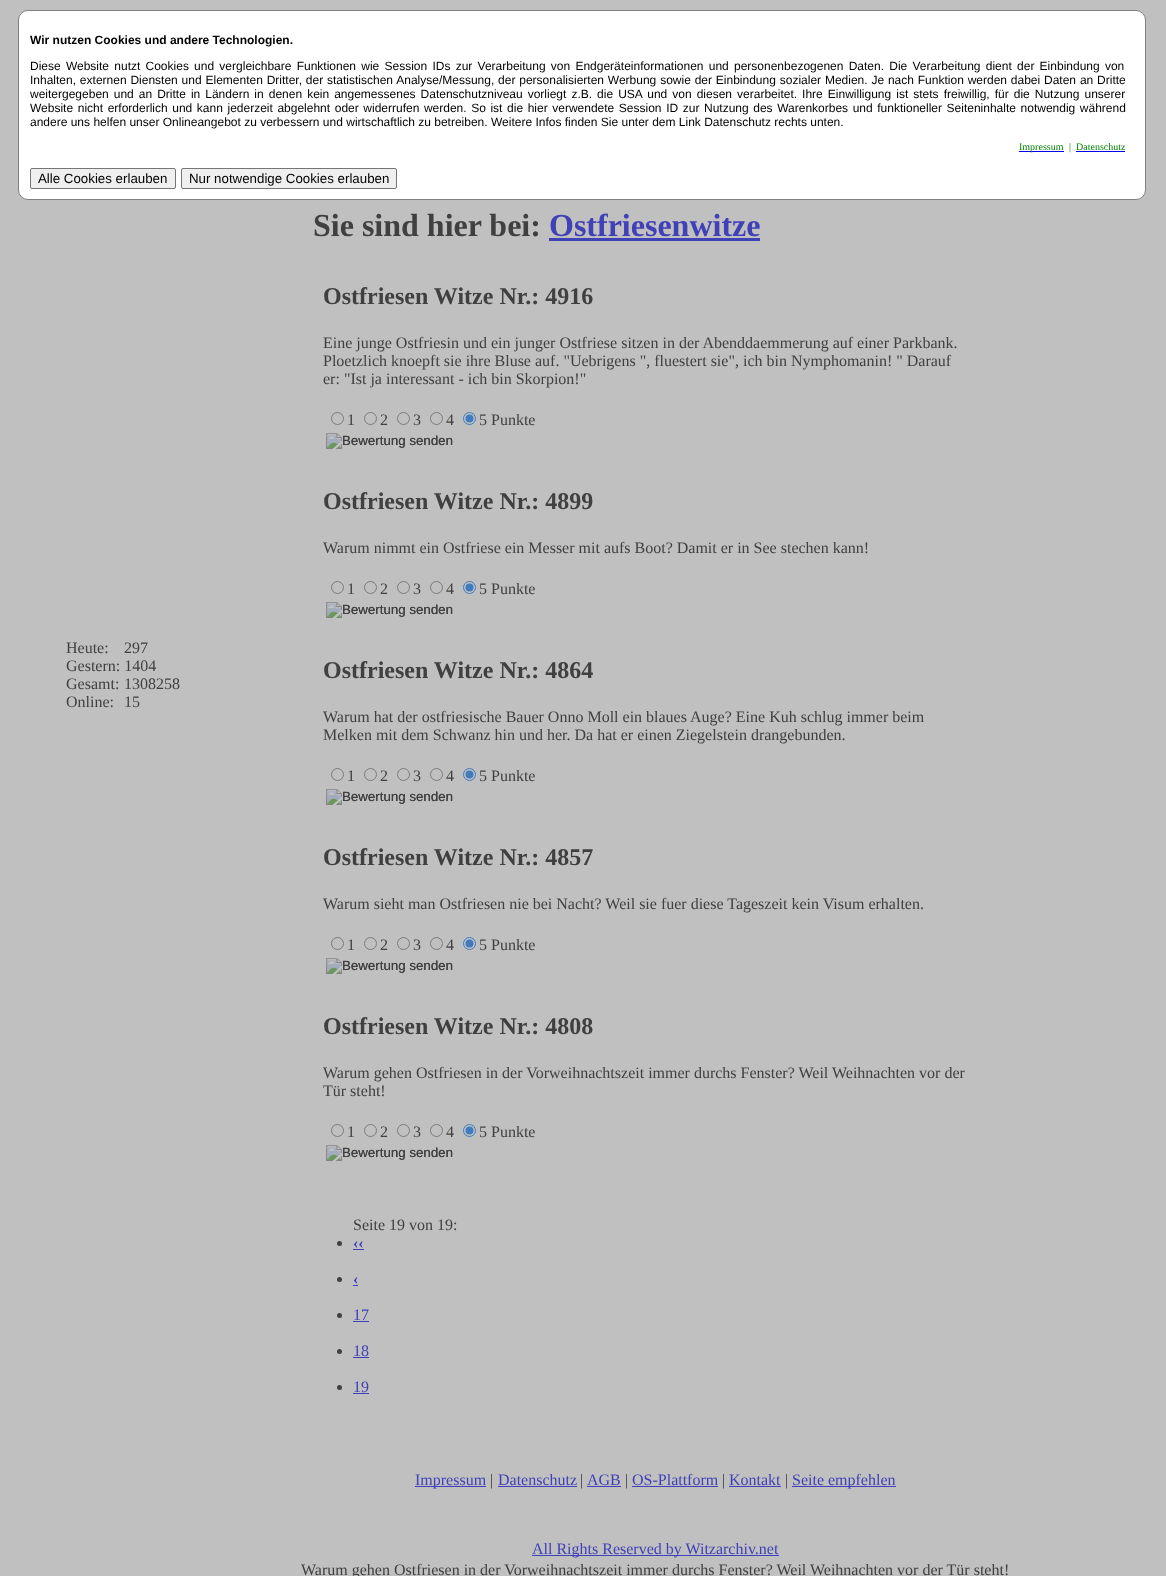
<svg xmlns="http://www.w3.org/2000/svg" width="1166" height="1576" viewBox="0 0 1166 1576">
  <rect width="100%" height="100%" fill="#c0c0c0"/>
  <rect x="18.5" y="10.5" width="1127" height="189" rx="9.5" fill="#ffffff" stroke="#808080"/>
  <text x="30" y="44" font-family="Liberation Sans" font-size="12" font-weight="bold" fill="#000000">Wir nutzen Cookies und andere Technologien.</text>
  <text x="30" y="70" word-spacing="1.9" font-family="Liberation Sans" font-size="12" fill="#000000">Diese Website nutzt Cookies und vergleichbare Funktionen wie Session IDs zur Verarbeitung von Endgeräteinformationen und personenbezogenen Daten. Die Verarbeitung dient der Einbindung von</text>
  <text x="30" y="84" word-spacing="0.5" font-family="Liberation Sans" font-size="12" fill="#000000">Inhalten, externen Diensten und Elementen Dritter, der statistischen Analyse/Messung, der personalisierten Werbung sowie der Einbindung sozialer Medien. Je nach Funktion werden dabei Daten an Dritte</text>
  <text x="30" y="98" word-spacing="1.7" font-family="Liberation Sans" font-size="12" fill="#000000">weitergegeben und an Dritte in Ländern in denen kein angemessenes Datenschutzniveau vorliegt z.B. die USA und von diesen verarbeitet. Ihre Einwilligung ist stets freiwillig, für die Nutzung unserer</text>
  <text x="30" y="112" word-spacing="1.25" font-family="Liberation Sans" font-size="12" fill="#000000">Website nicht erforderlich und kann jederzeit abgelehnt oder widerrufen werden. So ist die hier verwendete Session ID zur Nutzung des Warenkorbes und funktioneller Seiteninhalte notwendig während</text>
  <text x="30" y="126" font-family="Liberation Sans" font-size="12" fill="#000000">andere uns helfen unser Onlineangebot zu verbessern und wirtschaftlich zu betreiben. Weitere Infos finden Sie unter dem Link Datenschutz rechts unten.</text>
  <rect x="1019" y="151" width="45" height="1" fill="#0000ee"/>
  <text x="1019" y="150" font-family="Liberation Serif" font-size="10" fill="#008000">Impressum</text>
  <text x="1069" y="150" font-family="Liberation Serif" font-size="10" fill="#008000">|</text>
  <text x="1076" y="150" font-family="Liberation Serif" font-size="10" fill="#008000">Datenschutz</text>
  <rect x="1076" y="151" width="49" height="1" fill="#0000ee"/>
  <rect x="30.5" y="168.5" width="145" height="20" rx="1.5" fill="#efefef" stroke="#767676"/>
  <text x="38" y="183" font-family="Liberation Sans" font-size="13.3" fill="#000000">Alle Cookies erlauben</text>
  <rect x="181.5" y="168.5" width="215" height="20" rx="1.5" fill="#efefef" stroke="#767676"/>
  <text x="189" y="183" font-family="Liberation Sans" font-size="13.3" fill="#000000">Nur notwendige Cookies erlauben</text>
  <text x="66" y="653" font-family="Liberation Serif" font-size="16" fill="#404040">Heute:</text>
  <text x="124" y="653" font-family="Liberation Serif" font-size="16" fill="#404040">297</text>
  <text x="66" y="671" font-family="Liberation Serif" font-size="16" fill="#404040">Gestern: 1404</text>
  <text x="66" y="689" font-family="Liberation Serif" font-size="16" fill="#404040">Gesamt:</text>
  <text x="124" y="689" font-family="Liberation Serif" font-size="16" fill="#404040">1308258</text>
  <text x="66" y="707" font-family="Liberation Serif" font-size="16" fill="#404040">Online:</text>
  <text x="124" y="707" font-family="Liberation Serif" font-size="16" fill="#404040">15</text>
  <text x="313" y="236" font-family="Liberation Serif" font-size="32" font-weight="bold" fill="#404040">Sie sind hier bei:</text>
  <text x="549" y="236" font-family="Liberation Serif" font-size="32" font-weight="bold" fill="#4040b7">Ostfriesenwitze</text>
  <rect x="549" y="238" width="211" height="3" fill="#4040b7"/>
  <text x="323" y="304" font-family="Liberation Serif" font-size="24" font-weight="bold" fill="#404040">Ostfriesen Witze Nr.: 4916</text>
  <text x="323" y="348" font-family="Liberation Serif" font-size="16" fill="#404040">Eine junge Ostfriesin und ein junger Ostfriese sitzen in der Abenddaemmerung auf einer Parkbank.</text>
  <text x="323" y="366" font-family="Liberation Serif" font-size="16" fill="#404040">Ploetzlich knoepft sie ihre Bluse auf. "Uebrigens ", fluestert sie", ich bin Nymphomanin! " Darauf</text>
  <text x="323" y="384" font-family="Liberation Serif" font-size="16" fill="#404040">er: "Ist ja interessant - ich bin Skorpion!"</text>
  <circle cx="337.5" cy="418.5" r="6" fill="none" stroke="#7b7b7b"/>
  <text x="347" y="425" font-family="Liberation Serif" font-size="16" fill="#404040">1</text>
  <circle cx="370.5" cy="418.5" r="6" fill="none" stroke="#7b7b7b"/>
  <text x="380" y="425" font-family="Liberation Serif" font-size="16" fill="#404040">2</text>
  <circle cx="403.5" cy="418.5" r="6" fill="none" stroke="#7b7b7b"/>
  <text x="413" y="425" font-family="Liberation Serif" font-size="16" fill="#404040">3</text>
  <circle cx="436.5" cy="418.5" r="6" fill="none" stroke="#7b7b7b"/>
  <text x="446" y="425" font-family="Liberation Serif" font-size="16" fill="#404040">4</text>
  <circle cx="469.5" cy="418.5" r="6" fill="none" stroke="#407bc0"/>
  <circle cx="469.5" cy="418.5" r="4" fill="#407bc0"/>
  <text x="479" y="425" font-family="Liberation Serif" font-size="16" fill="#404040">5 Punkte</text>
  <image x="326" y="433" width="127" height="16" href="img1.png"/>
  <text x="342" y="445" font-family="Liberation Sans" font-size="13.3" fill="#404040">Bewertung senden</text>
  <text x="323" y="509" font-family="Liberation Serif" font-size="24" font-weight="bold" fill="#404040">Ostfriesen Witze Nr.: 4899</text>
  <text x="323" y="553" font-family="Liberation Serif" font-size="16" fill="#404040">Warum nimmt ein Ostfriese ein Messer mit aufs Boot? Damit er in See stechen kann!</text>
  <circle cx="337.5" cy="587.5" r="6" fill="none" stroke="#7b7b7b"/>
  <text x="347" y="594" font-family="Liberation Serif" font-size="16" fill="#404040">1</text>
  <circle cx="370.5" cy="587.5" r="6" fill="none" stroke="#7b7b7b"/>
  <text x="380" y="594" font-family="Liberation Serif" font-size="16" fill="#404040">2</text>
  <circle cx="403.5" cy="587.5" r="6" fill="none" stroke="#7b7b7b"/>
  <text x="413" y="594" font-family="Liberation Serif" font-size="16" fill="#404040">3</text>
  <circle cx="436.5" cy="587.5" r="6" fill="none" stroke="#7b7b7b"/>
  <text x="446" y="594" font-family="Liberation Serif" font-size="16" fill="#404040">4</text>
  <circle cx="469.5" cy="587.5" r="6" fill="none" stroke="#407bc0"/>
  <circle cx="469.5" cy="587.5" r="4" fill="#407bc0"/>
  <text x="479" y="594" font-family="Liberation Serif" font-size="16" fill="#404040">5 Punkte</text>
  <image x="326" y="602" width="127" height="16" href="img1.png"/>
  <text x="342" y="614" font-family="Liberation Sans" font-size="13.3" fill="#404040">Bewertung senden</text>
  <text x="323" y="678" font-family="Liberation Serif" font-size="24" font-weight="bold" fill="#404040">Ostfriesen Witze Nr.: 4864</text>
  <text x="323" y="722" font-family="Liberation Serif" font-size="16" fill="#404040">Warum hat der ostfriesische Bauer Onno Moll ein blaues Auge? Eine Kuh schlug immer beim</text>
  <text x="323" y="740" font-family="Liberation Serif" font-size="16" fill="#404040">Melken mit dem Schwanz hin und her. Da hat er einen Ziegelstein drangebunden.</text>
  <circle cx="337.5" cy="774.5" r="6" fill="none" stroke="#7b7b7b"/>
  <text x="347" y="781" font-family="Liberation Serif" font-size="16" fill="#404040">1</text>
  <circle cx="370.5" cy="774.5" r="6" fill="none" stroke="#7b7b7b"/>
  <text x="380" y="781" font-family="Liberation Serif" font-size="16" fill="#404040">2</text>
  <circle cx="403.5" cy="774.5" r="6" fill="none" stroke="#7b7b7b"/>
  <text x="413" y="781" font-family="Liberation Serif" font-size="16" fill="#404040">3</text>
  <circle cx="436.5" cy="774.5" r="6" fill="none" stroke="#7b7b7b"/>
  <text x="446" y="781" font-family="Liberation Serif" font-size="16" fill="#404040">4</text>
  <circle cx="469.5" cy="774.5" r="6" fill="none" stroke="#407bc0"/>
  <circle cx="469.5" cy="774.5" r="4" fill="#407bc0"/>
  <text x="479" y="781" font-family="Liberation Serif" font-size="16" fill="#404040">5 Punkte</text>
  <image x="326" y="789" width="127" height="16" href="img1.png"/>
  <text x="342" y="801" font-family="Liberation Sans" font-size="13.3" fill="#404040">Bewertung senden</text>
  <text x="323" y="865" font-family="Liberation Serif" font-size="24" font-weight="bold" fill="#404040">Ostfriesen Witze Nr.: 4857</text>
  <text x="323" y="909" font-family="Liberation Serif" font-size="16" fill="#404040">Warum sieht man Ostfriesen nie bei Nacht? Weil sie fuer diese Tageszeit kein Visum erhalten.</text>
  <circle cx="337.5" cy="943.5" r="6" fill="none" stroke="#7b7b7b"/>
  <text x="347" y="950" font-family="Liberation Serif" font-size="16" fill="#404040">1</text>
  <circle cx="370.5" cy="943.5" r="6" fill="none" stroke="#7b7b7b"/>
  <text x="380" y="950" font-family="Liberation Serif" font-size="16" fill="#404040">2</text>
  <circle cx="403.5" cy="943.5" r="6" fill="none" stroke="#7b7b7b"/>
  <text x="413" y="950" font-family="Liberation Serif" font-size="16" fill="#404040">3</text>
  <circle cx="436.5" cy="943.5" r="6" fill="none" stroke="#7b7b7b"/>
  <text x="446" y="950" font-family="Liberation Serif" font-size="16" fill="#404040">4</text>
  <circle cx="469.5" cy="943.5" r="6" fill="none" stroke="#407bc0"/>
  <circle cx="469.5" cy="943.5" r="4" fill="#407bc0"/>
  <text x="479" y="950" font-family="Liberation Serif" font-size="16" fill="#404040">5 Punkte</text>
  <image x="326" y="958" width="127" height="16" href="img1.png"/>
  <text x="342" y="970" font-family="Liberation Sans" font-size="13.3" fill="#404040">Bewertung senden</text>
  <text x="323" y="1034" font-family="Liberation Serif" font-size="24" font-weight="bold" fill="#404040">Ostfriesen Witze Nr.: 4808</text>
  <text x="323" y="1078" font-family="Liberation Serif" font-size="16" fill="#404040">Warum gehen Ostfriesen in der Vorweihnachtszeit immer durchs Fenster? Weil Weihnachten vor der</text>
  <text x="323" y="1096" font-family="Liberation Serif" font-size="16" fill="#404040">Tür steht!</text>
  <circle cx="337.5" cy="1130.5" r="6" fill="none" stroke="#7b7b7b"/>
  <text x="347" y="1137" font-family="Liberation Serif" font-size="16" fill="#404040">1</text>
  <circle cx="370.5" cy="1130.5" r="6" fill="none" stroke="#7b7b7b"/>
  <text x="380" y="1137" font-family="Liberation Serif" font-size="16" fill="#404040">2</text>
  <circle cx="403.5" cy="1130.5" r="6" fill="none" stroke="#7b7b7b"/>
  <text x="413" y="1137" font-family="Liberation Serif" font-size="16" fill="#404040">3</text>
  <circle cx="436.5" cy="1130.5" r="6" fill="none" stroke="#7b7b7b"/>
  <text x="446" y="1137" font-family="Liberation Serif" font-size="16" fill="#404040">4</text>
  <circle cx="469.5" cy="1130.5" r="6" fill="none" stroke="#407bc0"/>
  <circle cx="469.5" cy="1130.5" r="4" fill="#407bc0"/>
  <text x="479" y="1137" font-family="Liberation Serif" font-size="16" fill="#404040">5 Punkte</text>
  <image x="326" y="1145" width="127" height="16" href="img1.png"/>
  <text x="342" y="1157" font-family="Liberation Sans" font-size="13.3" fill="#404040">Bewertung senden</text>
  <text x="353" y="1230" font-family="Liberation Serif" font-size="16" fill="#404040">Seite 19 von 19:</text>
  <circle cx="339.5" cy="1243.5" r="2.5" fill="#404040"/>
  <text x="353" y="1248" font-family="Liberation Serif" font-size="16" font-weight="bold" fill="#4040b7">‹‹</text>
  <rect x="353" y="1249" width="11" height="1" fill="#4040b7"/>
  <circle cx="339.5" cy="1279.5" r="2.5" fill="#404040"/>
  <text x="353" y="1284" font-family="Liberation Serif" font-size="16" font-weight="bold" fill="#4040b7">‹</text>
  <rect x="353" y="1285" width="5" height="1" fill="#4040b7"/>
  <circle cx="339.5" cy="1315.5" r="2.5" fill="#404040"/>
  <text x="353" y="1320" font-family="Liberation Serif" font-size="16" fill="#4040b7">17</text>
  <rect x="353" y="1321" width="16" height="1" fill="#4040b7"/>
  <circle cx="339.5" cy="1351.5" r="2.5" fill="#404040"/>
  <text x="353" y="1356" font-family="Liberation Serif" font-size="16" fill="#4040b7">18</text>
  <rect x="353" y="1357" width="16" height="1" fill="#4040b7"/>
  <circle cx="339.5" cy="1387.5" r="2.5" fill="#404040"/>
  <text x="353" y="1392" font-family="Liberation Serif" font-size="16" fill="#4040b7">19</text>
  <rect x="353" y="1393" width="16" height="1" fill="#4040b7"/>
  <rect x="415" y="1486" width="71" height="1" fill="#4040b7"/>
  <text x="415" y="1485" font-family="Liberation Serif" font-size="16" fill="#4040b7">Impressum</text>
  <text x="490" y="1485" font-family="Liberation Serif" font-size="16" fill="#404040">|</text>
  <text x="498" y="1485" font-family="Liberation Serif" font-size="16" fill="#4040b7">Datenschutz</text>
  <rect x="498" y="1486" width="79" height="1" fill="#4040b7"/>
  <text x="580" y="1485" font-family="Liberation Serif" font-size="16" fill="#404040">|</text>
  <text x="587" y="1485" font-family="Liberation Serif" font-size="16" fill="#4040b7">AGB</text>
  <rect x="587" y="1486" width="34" height="1" fill="#4040b7"/>
  <text x="625" y="1485" font-family="Liberation Serif" font-size="16" fill="#404040">|</text>
  <text x="632" y="1485" font-family="Liberation Serif" font-size="16" fill="#4040b7">OS-Plattform</text>
  <rect x="632" y="1486" width="86" height="1" fill="#4040b7"/>
  <text x="722" y="1485" font-family="Liberation Serif" font-size="16" fill="#404040">|</text>
  <text x="729" y="1485" font-family="Liberation Serif" font-size="16" fill="#4040b7">Kontakt</text>
  <rect x="729" y="1486" width="52" height="1" fill="#4040b7"/>
  <text x="785" y="1485" font-family="Liberation Serif" font-size="16" fill="#404040">|</text>
  <rect x="792" y="1486" width="104" height="1" fill="#4040b7"/>
  <text x="792" y="1485" font-family="Liberation Serif" font-size="16" fill="#4040b7">Seite empfehlen</text>
  <rect x="532" y="1555" width="247" height="1" fill="#4040b7"/>
  <text x="532" y="1554" font-family="Liberation Serif" font-size="16" fill="#4040b7">All Rights Reserved by Witzarchiv.net</text>
  <text x="301" y="1575" font-family="Liberation Serif" font-size="16" fill="#404040">Warum gehen Ostfriesen in der Vorweihnachtszeit immer durchs Fenster? Weil Weihnachten vor der Tür steht!</text>
</svg>
